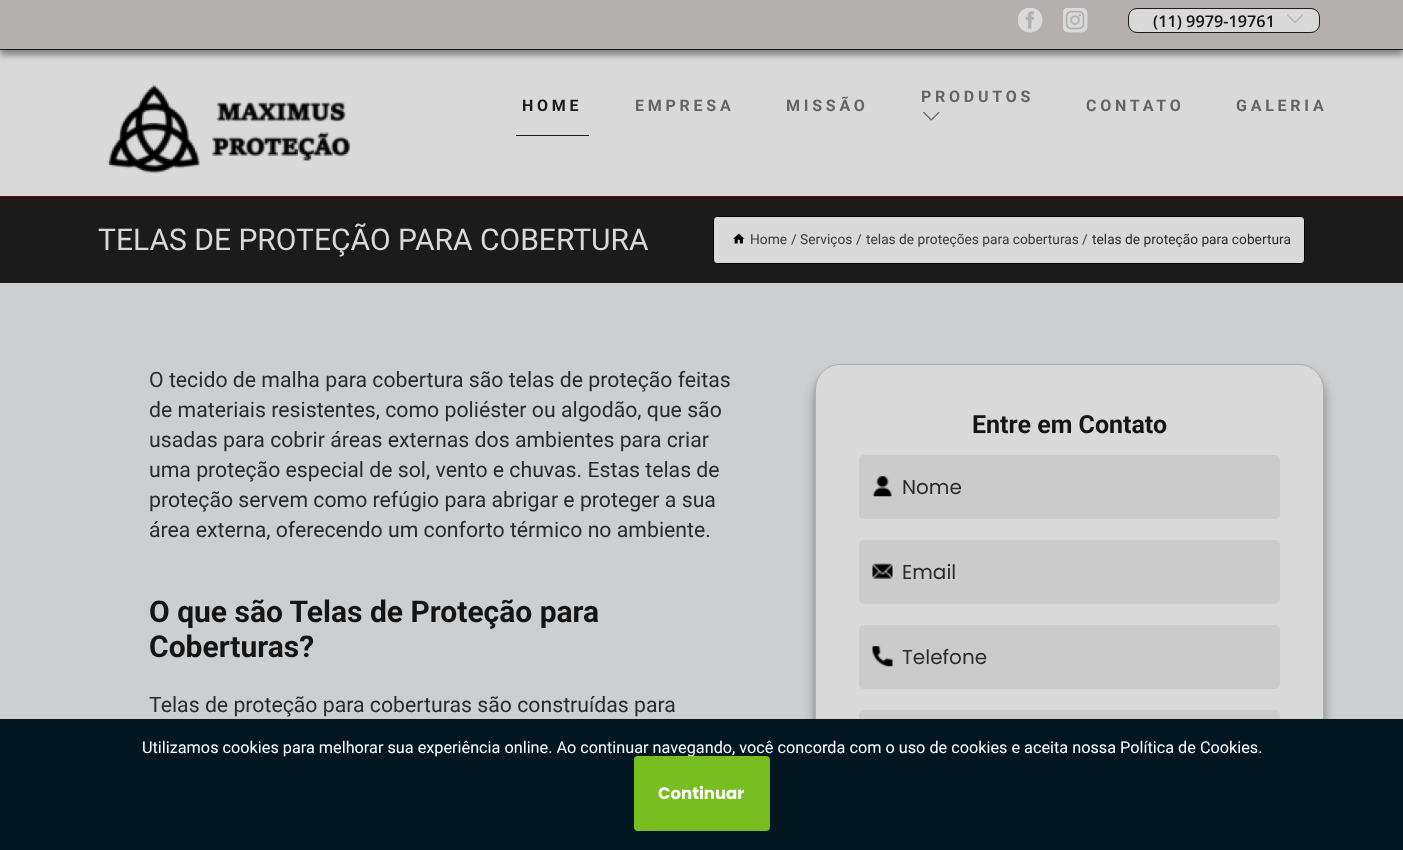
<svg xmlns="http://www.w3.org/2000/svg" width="1403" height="850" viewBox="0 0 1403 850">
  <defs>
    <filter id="blur1" x="-50%" y="-200%" width="200%" height="500%"><feGaussianBlur stdDeviation="3"/></filter>
    <filter id="blur2" x="-50%" y="-200%" width="200%" height="500%"><feGaussianBlur stdDeviation="5.5"/></filter>
  </defs>
  <rect width="100%" height="100%" fill="#ccced0"/>
  <rect x="0" y="50" width="1403" height="146" fill="#d9d9d9"/>
  <rect x="0" y="5" width="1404" height="50" fill="#000000" fill-opacity="0.4" filter="url(#blur1)"/>
  <rect x="0" y="0" width="1403" height="49" fill="#b4b0b0"/>
  <rect x="0" y="49" width="1403" height="1" fill="#1b1b1b"/>
  <image x="1018" y="8" width="25" height="25" href="img1.png"/>
  <image x="1063" y="8" width="25" height="25" href="img2.png"/>
  <rect x="1128.5" y="8.5" width="191" height="24" rx="8.5" fill="#d9d9d9" stroke="#1b1b1b"/>
  <text x="1153" y="27" font-family="Open Sans" font-size="16.25" font-weight="600" fill="#141414">(11) 9979-19761</text>
  <image x="1287" y="14" width="16" height="9" href="img3.png"/>
  <image x="107" y="85" width="244" height="89" href="img4.png"/>
  <text x="522" y="111" font-family="Roboto" font-size="16" font-weight="bold" letter-spacing="3.75" fill="#1b1b1b">HOME</text>
  <rect x="516" y="135" width="73" height="1" fill="#1b1b1b"/>
  <text x="635" y="111" font-family="Roboto" font-size="16" font-weight="bold" letter-spacing="3.75" fill="#646464">EMPRESA</text>
  <text x="786" y="111" font-family="Roboto" font-size="16" font-weight="bold" letter-spacing="3.75" fill="#646464">MISSÃO</text>
  <text x="921" y="102" font-family="Roboto" font-size="16" font-weight="bold" letter-spacing="3.75" fill="#646464">PRODUTOS</text>
  <image x="923" y="111" width="17" height="10" href="img5.png"/>
  <text x="1086" y="111" font-family="Roboto" font-size="16" font-weight="bold" letter-spacing="3.75" fill="#646464">CONTATO</text>
  <text x="1236" y="111" font-family="Roboto" font-size="16" font-weight="bold" letter-spacing="3.75" fill="#646464">GALERIA</text>
  <rect x="0" y="197" width="1403" height="86" fill="#1b1b1b"/>
  <rect x="0" y="196" width="1403" height="1" fill="#700202"/>
  <text x="98" y="250" font-family="Roboto" font-size="30" fill="#d9d9d9">TELAS DE PROTEÇÃO PARA COBERTURA</text>
  <rect x="713.5" y="216.5" width="591" height="47" rx="3.5" fill="#d9d9d9" stroke="#000000"/>
  <image x="733" y="233" width="12" height="11" href="img6.png"/>
  <text x="750" y="244" font-family="Roboto" font-size="13.75" fill="#3a3a3a">Home</text>
  <text x="791" y="244" font-family="Roboto" font-size="13.75" fill="#3a3a3a">/</text>
  <text x="800" y="244" font-family="Roboto" font-size="13.75" fill="#3a3a3a">Serviços</text>
  <text x="856" y="244" font-family="Roboto" font-size="13.75" fill="#3a3a3a">/</text>
  <text x="866" y="244" font-family="Roboto" font-size="13.75" fill="#3a3a3a">telas de proteções para coberturas</text>
  <text x="1082" y="244" font-family="Roboto" font-size="13.75" fill="#3a3a3a">/</text>
  <text x="1092" y="244" font-family="Roboto" font-size="13.75" fill="#2b2b2b">telas de proteção para cobertura</text>
  <text x="149" y="387" font-family="Roboto" font-size="21.25" fill="#2b2b2b">O tecido de malha para cobertura são telas de proteção feitas</text>
  <text x="149" y="417" font-family="Roboto" font-size="21.25" fill="#2b2b2b">de materiais resistentes, como poliéster ou algodão, que são</text>
  <text x="149" y="447" font-family="Roboto" font-size="21.25" fill="#2b2b2b">usadas para cobrir áreas externas dos ambientes para criar</text>
  <text x="149" y="477" font-family="Roboto" font-size="21.25" fill="#2b2b2b">uma proteção especial de sol, vento e chuvas. Estas telas de</text>
  <text x="149" y="507" font-family="Roboto" font-size="21.25" fill="#2b2b2b">proteção servem como refúgio para abrigar e proteger a sua</text>
  <text x="149" y="537" font-family="Roboto" font-size="21.25" fill="#2b2b2b">área externa, oferecendo um conforto térmico no ambiente.</text>
  <text x="149" y="622" font-family="Roboto" font-size="30" font-weight="bold" fill="#141414">O que são Telas de Proteção para</text>
  <text x="149" y="657" font-family="Roboto" font-size="30" font-weight="bold" fill="#141414">Coberturas?</text>
  <text x="149" y="712" font-family="Roboto" font-size="21.25" fill="#2b2b2b">Telas de proteção para coberturas são construídas para</text>
  <rect x="815" y="373" width="509" height="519" rx="25" fill="#000000" fill-opacity="0.4" filter="url(#blur2)"/>
  <rect x="815.5" y="364.5" width="508" height="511" rx="24.5" fill="#d9d9d9" stroke="#adadad"/>
  <text x="972" y="433" font-family="Roboto" font-size="25" font-weight="bold" fill="#141414">Entre em Contato</text>
  <rect x="859" y="455" width="421" height="64" rx="5" fill="#cbcbcb"/>
  <image x="872" y="476" width="21" height="21" href="img7.png"/>
  <text x="902" y="494" font-family="Poppins" font-size="20" fill="#2b2b2b">Nome</text>
  <rect x="859" y="540" width="421" height="64" rx="5" fill="#cbcbcb"/>
  <image x="872" y="563" width="21" height="16" href="img8.png"/>
  <text x="902" y="579" font-family="Poppins" font-size="20" fill="#2b2b2b">Email</text>
  <rect x="859" y="625" width="421" height="64" rx="5" fill="#cbcbcb"/>
  <image x="872" y="646" width="21" height="21" href="img9.png"/>
  <text x="902" y="664" font-family="Poppins" font-size="20" fill="#2b2b2b">Telefone</text>
  <rect x="859" y="710" width="421" height="125" rx="5" fill="#cbcbcb"/>
  <rect x="0" y="719" width="1403" height="131" fill="#021722"/>
  <text x="142" y="753" font-family="Roboto" font-size="16.25" fill="#ffffff">Utilizamos cookies para melhorar sua experiência online. Ao continuar navegando, você concorda com o uso de cookies e aceita nossa Política de Cookies.</text>
  <rect x="634" y="756" width="136" height="75" rx="4" fill="#78be20"/>
  <text x="658" y="799" font-family="Poppins" font-size="16.5" font-weight="bold" fill="#ffffff">Continuar</text>
</svg>
